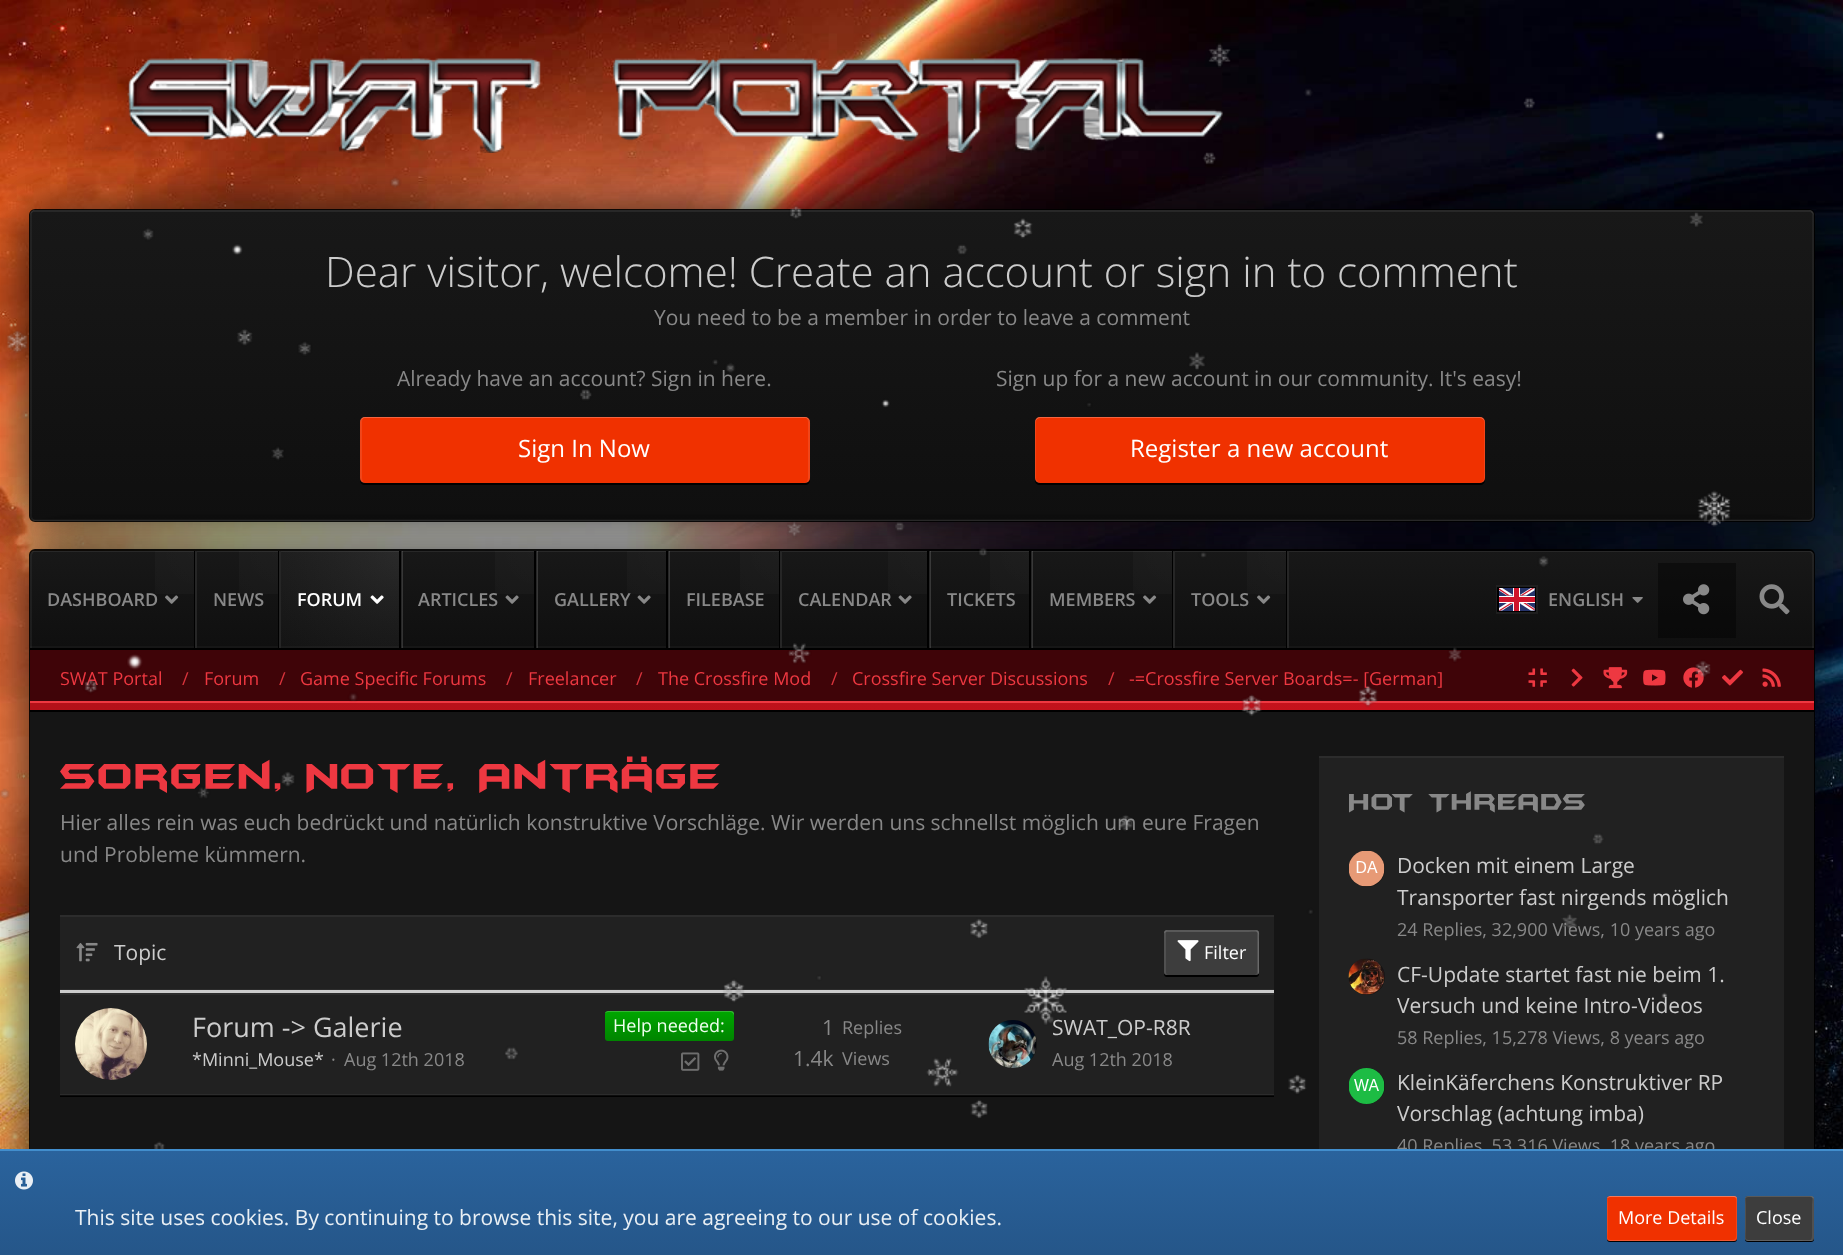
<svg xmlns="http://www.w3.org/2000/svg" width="1843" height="1255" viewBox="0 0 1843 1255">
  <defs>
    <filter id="blur1" x="-50%" y="-200%" width="200%" height="500%"><feGaussianBlur stdDeviation="26"/></filter>
    <linearGradient id="g1" gradientUnits="userSpaceOnUse" x1="922" y1="210" x2="922" y2="521"><stop offset="0" stop-color="#181818"/><stop offset="1" stop-color="#0f0f0f"/></linearGradient>
    <linearGradient id="g2" gradientUnits="userSpaceOnUse" x1="922" y1="550" x2="922" y2="648"><stop offset="0" stop-color="#181818"/><stop offset="1" stop-color="#0f0f0f"/></linearGradient>
    <radialGradient id="g3" gradientUnits="userSpaceOnUse" cx="197" cy="552" r="149"><stop offset="0" stop-color="#ffffff" stop-opacity="0.03"/><stop offset="1" stop-color="#ffffff" stop-opacity="0"/></radialGradient>
    <radialGradient id="g4" gradientUnits="userSpaceOnUse" cx="281" cy="552" r="149"><stop offset="0" stop-color="#ffffff" stop-opacity="0.03"/><stop offset="1" stop-color="#ffffff" stop-opacity="0"/></radialGradient>
    <radialGradient id="g5" gradientUnits="userSpaceOnUse" cx="402" cy="551" r="275"><stop offset="0" stop-color="#ffffff" stop-opacity="0.08"/><stop offset="1" stop-color="#121212" stop-opacity="0.02"/></radialGradient>
    <radialGradient id="g6" gradientUnits="userSpaceOnUse" cx="537" cy="552" r="149"><stop offset="0" stop-color="#ffffff" stop-opacity="0.03"/><stop offset="1" stop-color="#ffffff" stop-opacity="0"/></radialGradient>
    <radialGradient id="g7" gradientUnits="userSpaceOnUse" cx="669" cy="552" r="149"><stop offset="0" stop-color="#ffffff" stop-opacity="0.03"/><stop offset="1" stop-color="#ffffff" stop-opacity="0"/></radialGradient>
    <radialGradient id="g8" gradientUnits="userSpaceOnUse" cx="782" cy="552" r="149"><stop offset="0" stop-color="#ffffff" stop-opacity="0.03"/><stop offset="1" stop-color="#ffffff" stop-opacity="0"/></radialGradient>
    <radialGradient id="g9" gradientUnits="userSpaceOnUse" cx="930" cy="552" r="149"><stop offset="0" stop-color="#ffffff" stop-opacity="0.03"/><stop offset="1" stop-color="#ffffff" stop-opacity="0"/></radialGradient>
    <radialGradient id="g10" gradientUnits="userSpaceOnUse" cx="1032" cy="552" r="149"><stop offset="0" stop-color="#ffffff" stop-opacity="0.03"/><stop offset="1" stop-color="#ffffff" stop-opacity="0"/></radialGradient>
    <radialGradient id="g11" gradientUnits="userSpaceOnUse" cx="1175" cy="552" r="149"><stop offset="0" stop-color="#ffffff" stop-opacity="0.03"/><stop offset="1" stop-color="#ffffff" stop-opacity="0"/></radialGradient>
    <radialGradient id="g12" gradientUnits="userSpaceOnUse" cx="1289" cy="552" r="149"><stop offset="0" stop-color="#ffffff" stop-opacity="0.03"/><stop offset="1" stop-color="#ffffff" stop-opacity="0"/></radialGradient>
    <linearGradient id="g13" gradientUnits="userSpaceOnUse" x1="30" y1="706" x2="1814" y2="706"><stop offset="0" stop-color="#b31119"/><stop offset="1" stop-color="#cc131d"/></linearGradient>
    <linearGradient id="g14" gradientUnits="userSpaceOnUse" x1="669" y1="1011" x2="669" y2="1041"><stop offset="0" stop-color="#00a700"/><stop offset="1" stop-color="#008400"/></linearGradient>
    <linearGradient id="g15" gradientUnits="userSpaceOnUse" x1="922" y1="1150" x2="922" y2="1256"><stop offset="0" stop-color="#2a639d"/><stop offset="1" stop-color="#255689"/></linearGradient>
  </defs>
  <rect width="100%" height="100%" fill="#ffffff"/>
  <image x="0" y="0" width="1843" height="1149" href="img1.png"/>
  <image x="78" y="58" width="1145" height="95" href="img3.png"/>
  <rect x="30" y="210" width="1784" height="311" rx="5" fill="#000000" fill-opacity="0.5" filter="url(#blur1)"/>
  <rect x="30" y="210" width="1784" height="311" rx="5" fill="#000000" fill-opacity="0.5" filter="url(#blur1)"/>
  <rect x="30" y="210" width="1784" height="311" rx="5" fill="none" stroke="#000000" stroke-opacity="0.9" stroke-width="2"/>
  <rect x="30" y="210" width="1784" height="311" rx="5" fill="url(#g1)"/>
  <path d="M30 514C30 517 31 521 35 521H1809C1813 521 1814 517 1814 514C1814 517 1811 519 1809 519H34C32 519 30 517 30 514Z" fill="#ffffff" fill-opacity="0.03"/>
  <path d="M34 212H1809C1811 212 1814 214 1814 216V215C1814 212 1812 210 1809 210H35C32 210 30 212 30 215V216C30 214 32 212 34 212Z" fill="#ffffff" fill-opacity="0.07"/>
  <path d="M32 520C33 521 34 521 35 521H1809C1812 521 1814 519 1814 516V215C1814 212 1812 210 1809 210H1808C1810 210 1812 212 1812 214V516C1812 518 1810 520 1808 520Z" fill="#ffffff" fill-opacity="0.05"/>
  <path d="M35 210C32 210 30 212 30 215V516C30 519 32 521 35 521H1809C1810 521 1812 520 1813 519L1810 520H36C34 520 32 518 32 516V214C32 212 34 210 36 210Z" fill="#ffffff" fill-opacity="0.05"/>
  <text x="325" y="287" font-family="Open Sans" font-size="42" font-weight="300" fill="#cccccc">Dear visitor, welcome! Create an account or sign in to comment</text>
  <text x="654" y="325" font-family="Open Sans" font-size="21" fill="#888888">You need to be a member in order to leave a comment</text>
  <text x="397" y="386" font-family="Open Sans" font-size="21" fill="#888888">Already have an account? Sign in here.</text>
  <path d="M360 478V480C360 483 362 485 365 485H805C808 485 810 483 810 480V478C810 481 808 483 806 483H364C362 483 360 481 360 478Z" fill="#000000"/>
  <rect x="360" y="417" width="450" height="66" rx="5" fill="#f03100"/>
  <path d="M365 417C362 417 360 419 360 422V478C360 481 362 483 365 483H366C364 483 362 481 362 478V422C362 419 364 417 366 417Z" fill="#ffffff" fill-opacity="0.1"/>
  <path d="M804 483C812 483 810 475 810 469V431C810 425 812 417 804 417C806 417 808 419 808 422V478C808 481 806 483 804 483Z" fill="#ffffff" fill-opacity="0.1"/>
  <path d="M364 418H806C808 418 810 421 810 423C810 420 808 417 805 417H365C362 417 360 420 360 423C360 421 362 418 364 418Z" fill="#ffffff" fill-opacity="0.25"/>
  <text x="518" y="457" font-family="Open Sans" font-size="24" fill="#ffffff">Sign In Now</text>
  <text x="996" y="386" font-family="Open Sans" font-size="21" fill="#888888">Sign up for a new account in our community. It's easy!</text>
  <path d="M1035 478V480C1035 483 1037 485 1040 485H1480C1483 485 1485 483 1485 480V478C1485 481 1483 483 1480 483H1040C1037 483 1035 481 1035 478Z" fill="#000000"/>
  <rect x="1035" y="417" width="450" height="66" rx="5" fill="#f03100"/>
  <path d="M1040 417C1037 417 1035 419 1035 422V478C1035 481 1037 483 1040 483H1041C1039 483 1036 481 1036 478V422C1036 419 1039 417 1041 417Z" fill="#ffffff" fill-opacity="0.1"/>
  <path d="M1479 483C1487 483 1485 475 1485 469V431C1485 425 1487 417 1479 417C1481 417 1484 419 1484 422V478C1484 481 1481 483 1479 483Z" fill="#ffffff" fill-opacity="0.1"/>
  <path d="M1040 418H1480C1483 418 1485 421 1485 423C1485 420 1483 417 1480 417H1040C1037 417 1035 420 1035 423C1035 421 1037 418 1040 418Z" fill="#ffffff" fill-opacity="0.25"/>
  <text x="1130" y="457" font-family="Open Sans" font-size="24" fill="#ffffff">Register a new account</text>
  <rect x="30" y="551" width="1784" height="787" rx="5" fill="#000000" fill-opacity="0.5" filter="url(#blur1)"/>
  <rect x="30" y="551" width="1784" height="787" rx="5" fill="#000000" fill-opacity="0.5" filter="url(#blur1)"/>
  <rect x="30" y="550" width="1784" height="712" rx="5" fill="none" stroke="#000000" stroke-opacity="0.9" stroke-width="2"/>
  <rect x="30" y="551" width="1784" height="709" rx="5" fill="#151515"/>
  <path d="M35 551H1809C1812 551 1814 553 1814 556V648H30V556C30 553 32 551 35 551Z" fill="url(#g2)"/>
  <rect x="30" y="646" width="1784" height="2" fill="#161616"/>
  <path d="M34 552H1809C1811 552 1814 554 1814 556C1814 553 1812 551 1809 551H35C32 551 30 553 30 556C30 554 32 552 34 552Z" fill="#ffffff" fill-opacity="0.07"/>
  <path d="M34 551C32 552 30 554 30 556V648H32V555Z" fill="#ffffff" fill-opacity="0.05"/>
  <rect x="155" y="551" width="39" height="43" fill="url(#g3)"/>
  <rect x="194" y="551" width="1" height="97" fill="#000000"/>
  <rect x="195" y="551" width="2" height="97" fill="#262626"/>
  <text x="47" y="606" font-family="Open Sans" font-size="18" font-weight="600" fill="#888888">DASHBOARD</text>
  <image x="165" y="595" width="14" height="9" href="img4.png"/>
  <rect x="239" y="551" width="39" height="43" fill="url(#g4)"/>
  <rect x="278" y="551" width="1" height="97" fill="#000000"/>
  <rect x="279" y="551" width="2" height="97" fill="#262626"/>
  <text x="213" y="606" font-family="Open Sans" font-size="18" font-weight="600" fill="#888888">NEWS</text>
  <rect x="281" y="551" width="118" height="97" fill="url(#g5)"/>
  <rect x="399" y="551" width="3" height="97" fill="#000000"/>
  <rect x="401" y="551" width="2" height="97" fill="#ffffff" fill-opacity="0.15"/>
  <text x="297" y="606" font-family="Open Sans" font-size="18" font-weight="600" fill="#ffffff">FORUM</text>
  <image x="370" y="595" width="14" height="9" href="img5.png"/>
  <rect x="495" y="551" width="39" height="43" fill="url(#g6)"/>
  <rect x="534" y="551" width="3" height="97" fill="#000000"/>
  <rect x="536" y="551" width="2" height="97" fill="#ffffff" fill-opacity="0.15"/>
  <text x="418" y="606" font-family="Open Sans" font-size="18" font-weight="600" fill="#888888">ARTICLES</text>
  <image x="505" y="595" width="14" height="9" href="img6.png"/>
  <rect x="627" y="551" width="39" height="43" fill="url(#g7)"/>
  <rect x="666" y="551" width="3" height="97" fill="#000000"/>
  <rect x="668" y="551" width="2" height="97" fill="#ffffff" fill-opacity="0.15"/>
  <text x="554" y="606" font-family="Open Sans" font-size="18" font-weight="600" fill="#888888">GALLERY</text>
  <image x="637" y="595" width="14" height="9" href="img6.png"/>
  <rect x="740" y="551" width="39" height="43" fill="url(#g8)"/>
  <rect x="779" y="551" width="1" height="97" fill="#000000"/>
  <rect x="780" y="551" width="2" height="97" fill="#262626"/>
  <text x="686" y="606" font-family="Open Sans" font-size="18" font-weight="600" fill="#888888">FILEBASE</text>
  <rect x="888" y="551" width="39" height="43" fill="url(#g9)"/>
  <rect x="927" y="551" width="3" height="97" fill="#000000"/>
  <rect x="929" y="551" width="2" height="97" fill="#ffffff" fill-opacity="0.15"/>
  <text x="798" y="606" font-family="Open Sans" font-size="18" font-weight="600" fill="#888888">CALENDAR</text>
  <image x="898" y="595" width="14" height="9" href="img6.png"/>
  <rect x="990" y="551" width="39" height="43" fill="url(#g10)"/>
  <rect x="1029" y="551" width="3" height="97" fill="#000000"/>
  <rect x="1031" y="551" width="2" height="97" fill="#ffffff" fill-opacity="0.15"/>
  <text x="947" y="606" font-family="Open Sans" font-size="18" font-weight="600" fill="#888888">TICKETS</text>
  <rect x="1133" y="551" width="39" height="43" fill="url(#g11)"/>
  <rect x="1172" y="551" width="1" height="97" fill="#000000"/>
  <rect x="1173" y="551" width="2" height="97" fill="#262626"/>
  <text x="1049" y="606" font-family="Open Sans" font-size="18" font-weight="600" fill="#888888">MEMBERS</text>
  <image x="1143" y="595" width="14" height="9" href="img4.png"/>
  <rect x="1247" y="551" width="39" height="43" fill="url(#g12)"/>
  <rect x="1286" y="551" width="1" height="97" fill="#000000"/>
  <rect x="1287" y="551" width="2" height="97" fill="#262626"/>
  <text x="1191" y="606" font-family="Open Sans" font-size="18" font-weight="600" fill="#888888">TOOLS</text>
  <image x="1257" y="595" width="14" height="9" href="img4.png"/>
  <rect x="1497" y="586" width="40" height="27" fill="none" stroke="#ffffff" stroke-opacity="0.05" stroke-width="2"/>
  <rect x="1498" y="588" width="37" height="23" fill="none" stroke="#000000" stroke-width="2"/>
  <image x="1499" y="588" width="36" height="23" href="img7.png"/>
  <text x="1548" y="606" font-family="Open Sans" font-size="18" font-weight="600" fill="#888888">ENGLISH</text>
  <image x="1632" y="597" width="11" height="6" href="img8.png"/>
  <rect x="1658" y="563" width="78" height="75" fill="#000000" fill-opacity="0.4"/>
  <image x="1683" y="584" width="27" height="31" href="img9.png"/>
  <rect x="30" y="650" width="1784" height="51" fill="#3f0408"/>
  <rect x="30" y="648" width="1784" height="2" fill="#000000"/>
  <text x="60" y="685" font-family="Open Sans" font-size="18" fill="#ee3841">SWAT Portal</text>
  <text x="182" y="685" font-family="Open Sans" font-size="18" fill="#d8343c">/</text>
  <text x="204" y="685" font-family="Open Sans" font-size="18" fill="#ee3841">Forum</text>
  <text x="279" y="685" font-family="Open Sans" font-size="18" fill="#d8343c">/</text>
  <text x="300" y="685" font-family="Open Sans" font-size="18" fill="#ee3841">Game Specific Forums</text>
  <text x="506" y="685" font-family="Open Sans" font-size="18" fill="#d8343c">/</text>
  <text x="528" y="685" font-family="Open Sans" font-size="18" fill="#ee3841">Freelancer</text>
  <text x="636" y="685" font-family="Open Sans" font-size="18" fill="#d8343c">/</text>
  <text x="658" y="685" font-family="Open Sans" font-size="18" fill="#ee3841">The Crossfire Mod</text>
  <text x="831" y="685" font-family="Open Sans" font-size="18" fill="#d8343c">/</text>
  <text x="852" y="685" font-family="Open Sans" font-size="18" fill="#ee3841">Crossfire Server Discussions</text>
  <text x="1108" y="685" font-family="Open Sans" font-size="18" fill="#d8343c">/</text>
  <text x="1129" y="685" font-family="Open Sans" font-size="18" fill="#ee3841">-=Crossfire Server Boards=- [German]</text>
  <image x="1528" y="668" width="19" height="19" href="img11.png"/>
  <image x="1571" y="668" width="12" height="19" href="img12.png"/>
  <image x="1603" y="667" width="25" height="22" href="img13.png"/>
  <image x="1643" y="669" width="23" height="17" href="img14.png"/>
  <image x="1683" y="667" width="21" height="21" href="img15.png"/>
  <image x="1722" y="669" width="21" height="17" href="img16.png"/>
  <rect x="30" y="703" width="1784" height="7" fill="url(#g13)"/>
  <rect x="30" y="701" width="1784" height="2" fill="#ee3841"/>
  <rect x="30" y="710" width="1784" height="2" fill="#000000"/>
  <text x="60" y="789" font-family="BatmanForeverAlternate" font-size="42" fill="#ee3841">Sorgen, Nöte, Anträge</text>
  <text x="60" y="830" font-family="Open Sans" font-size="21" fill="#888888">Hier alles rein was euch bedrückt und natürlich konstruktive Vorschläge. Wir werden uns schnellst möglich um eure Fragen</text>
  <text x="60" y="862" font-family="Open Sans" font-size="21" fill="#888888">und Probleme kümmern.</text>
  <rect x="60" y="1095" width="1214" height="2" fill="#000000"/>
  <rect x="60" y="917" width="1214" height="72" fill="#212121"/>
  <rect x="60" y="989" width="1214" height="1" fill="#2c2c2c"/>
  <rect x="60" y="915" width="1214" height="2" fill="#2c2c2c"/>
  <rect x="60" y="990" width="1214" height="3" fill="#cccccc"/>
  <image x="76" y="942" width="22" height="20" href="img18.png"/>
  <text x="114" y="960" font-family="Open Sans" font-size="21" fill="#cccccc">Topic</text>
  <path d="M1164 972V974C1164 976 1165 977 1167 977H1256C1258 977 1259 976 1259 974V935L1258 933V972C1258 974 1257 975 1256 975H1167C1165 975 1164 974 1164 972Z" fill="#000000"/>
  <rect x="1164" y="930" width="95" height="45" rx="3" fill="#3d3d3d"/>
  <path d="M1167 930C1165 930 1164 931 1164 933V972C1164 974 1165 975 1167 975H1168C1167 975 1166 974 1166 972V933C1166 931 1167 930 1168 930Z" fill="#ffffff" fill-opacity="0.1"/>
  <path d="M1254 975C1261 975 1259 972 1259 966V940C1259 933 1261 930 1254 930C1256 930 1257 931 1257 933V972C1257 974 1256 975 1254 975Z" fill="#ffffff" fill-opacity="0.1"/>
  <path d="M1167 932H1241C1262 932 1258 928 1258 947V974C1259 974 1259 973 1259 972V933C1259 931 1258 930 1256 930H1167C1165 930 1164 931 1164 933V934C1164 933 1165 932 1167 932Z" fill="#ffffff" fill-opacity="0.15"/>
  <image x="1177" y="940" width="22" height="22" href="img19.png"/>
  <text x="1204" y="959" font-family="Open Sans" font-size="18" fill="#ffffff">Filter</text>
  <rect x="60" y="995" width="1214" height="100" fill="#212121"/>
  <rect x="60" y="1094" width="1214" height="2" fill="#ffffff" fill-opacity="0.05"/>
  <rect x="60" y="993" width="1214" height="2" fill="#2c2c2c"/>
  <circle cx="111" cy="1044" r="36" fill="#151515"/>
  <image x="75" y="1008" width="72" height="72" href="img20.png"/>
  <text x="192" y="1037" font-family="Open Sans" font-size="27" fill="#cccccc">Forum -&gt; Galerie</text>
  <rect x="605" y="1011" width="129" height="30" rx="3" fill="url(#g14)"/>
  <path d="M608 1012H730C732 1012 734 1014 734 1016V1014C734 1012 733 1011 731 1011H608C607 1011 605 1012 605 1013Z" fill="#ffffff" fill-opacity="0.2"/>
  <text x="613" y="1032" font-family="Open Sans" font-size="18" fill="#eeffee">Help needed:</text>
  <text x="192" y="1066" font-family="Open Sans" font-size="18" fill="#cccccc">*Minni_Mouse*</text>
  <text x="331" y="1066" font-family="Open Sans" font-size="18" fill="#888888">·</text>
  <text x="344" y="1066" font-family="Open Sans" font-size="18" fill="#888888">Aug 12th 2018</text>
  <image x="681" y="1052" width="19" height="19" href="img21.png"/>
  <image x="714" y="1049" width="15" height="22" href="img22.png"/>
  <text x="822" y="1035" font-family="Open Sans" font-size="21" fill="#888888">1</text>
  <text x="842" y="1034" font-family="Open Sans" font-size="18" fill="#888888">Replies</text>
  <text x="793" y="1066" font-family="Open Sans" font-size="21" fill="#888888">1.4k</text>
  <text x="842" y="1065" font-family="Open Sans" font-size="18" fill="#888888">Views</text>
  <circle cx="1013" cy="1044" r="24" fill="#151515"/>
  <image x="988" y="1020" width="48" height="48" href="img23.png"/>
  <text x="1052" y="1035" font-family="Open Sans" font-size="21" fill="#cccccc">SWAT_OP-R8R</text>
  <text x="1052" y="1066" font-family="Open Sans" font-size="18" fill="#888888">Aug 12th 2018</text>
  <rect x="1319" y="758" width="465" height="391" fill="#212121"/>
  <rect x="1319" y="756" width="465" height="2" fill="#2c2c2c"/>
  <text x="1349" y="810" font-family="BatmanForeverAlternate" font-size="27" fill="#888888">Hot Threads</text>
  <circle cx="1367" cy="869" r="18" fill="#151515"/>
  <image x="1349" y="851" width="36" height="36" href="img24.png"/>
  <text x="1397" y="873" font-family="Open Sans" font-size="21" fill="#cccccc">Docken mit einem Large</text>
  <text x="1397" y="905" font-family="Open Sans" font-size="21" fill="#cccccc">Transporter fast nirgends möglich</text>
  <text x="1397" y="936" font-family="Open Sans" font-size="18" fill="#888888">24 Replies, 32,900 Views, 10 years ago</text>
  <circle cx="1367" cy="977" r="18" fill="#151515"/>
  <image x="1348" y="958" width="37" height="37" href="img25.png"/>
  <text x="1397" y="982" font-family="Open Sans" font-size="21" fill="#cccccc">CF-Update startet fast nie beim 1.</text>
  <text x="1397" y="1013" font-family="Open Sans" font-size="21" fill="#cccccc">Versuch und keine Intro-Videos</text>
  <text x="1397" y="1044" font-family="Open Sans" font-size="18" fill="#888888">58 Replies, 15,278 Views, 8 years ago</text>
  <circle cx="1367" cy="1086" r="18" fill="#151515"/>
  <image x="1349" y="1068" width="36" height="36" href="img26.png"/>
  <text x="1397" y="1090" font-family="Open Sans" font-size="21" fill="#cccccc">KleinKäferchens Konstruktiver RP</text>
  <text x="1397" y="1121" font-family="Open Sans" font-size="21" fill="#cccccc">Vorschlag (achtung imba)</text>
  <text x="1397" y="1152" font-family="Open Sans" font-size="18" fill="#888888">40 Replies, 53,316 Views, 18 years ago</text>
  <image x="0" y="43" width="1732" height="1106" href="img2.png"/>
  <path d="M1812 648H1814V556C1814 554 1812 552 1810 551L1812 555Z" fill="#ffffff" fill-opacity="0.05"/>
  <image x="1759" y="584" width="31" height="31" href="img10.png"/>
  <image x="1762" y="668" width="19" height="19" href="img17.png"/>
  <rect x="0" y="1151" width="1843" height="104" fill="url(#g15)"/>
  <rect x="0" y="1149" width="1843" height="2" fill="#428ecd"/>
  <image x="15" y="1171" width="18" height="19" href="img27.png"/>
  <text x="75" y="1225" font-family="Open Sans" font-size="21" fill="#e9eff4">This site uses cookies. By continuing to browse this site, you are agreeing to our use of cookies.</text>
  <path d="M1607 1239C1607 1241 1608 1242 1610 1242H1734C1736 1242 1737 1241 1737 1239V1238C1737 1239 1736 1240 1734 1240H1610C1608 1240 1608 1240 1607 1239Z" fill="#000000"/>
  <rect x="1607" y="1196" width="130" height="45" rx="3" fill="#f03100"/>
  <path d="M1610 1196C1608 1196 1607 1197 1607 1199V1238C1607 1240 1608 1241 1610 1241H1734C1735 1241 1736 1241 1736 1240H1611C1606 1240 1608 1235 1608 1231V1205C1608 1201 1606 1196 1611 1196Z" fill="#ffffff" fill-opacity="0.1"/>
  <path d="M1608 1240L1610 1241H1713C1742 1241 1737 1246 1737 1218V1206C1737 1199 1739 1196 1732 1196C1737 1196 1736 1200 1736 1205V1231C1736 1236 1737 1240 1732 1240Z" fill="#ffffff" fill-opacity="0.1"/>
  <path d="M1610 1197H1734C1736 1197 1737 1198 1737 1200V1199C1737 1197 1736 1196 1734 1196H1610C1609 1196 1608 1197 1607 1198Z" fill="#ffffff" fill-opacity="0.35"/>
  <text x="1618" y="1224" font-family="Open Sans" font-size="18" fill="#ffffff">More Details</text>
  <path d="M1745 1239C1745 1241 1746 1242 1748 1242H1811C1813 1242 1814 1241 1814 1239V1200L1813 1198L1814 1231C1814 1243 1813 1240 1800 1240H1758C1756 1240 1747 1242 1745 1239Z" fill="#000000"/>
  <rect x="1745" y="1196" width="69" height="45" rx="3" fill="#3d3d3d"/>
  <path d="M1748 1196C1746 1196 1745 1197 1745 1199V1238C1745 1240 1746 1241 1748 1241H1811C1812 1241 1813 1241 1813 1240H1760C1742 1240 1746 1242 1746 1225V1205C1746 1201 1744 1196 1749 1196Z" fill="#ffffff" fill-opacity="0.1"/>
  <path d="M1746 1240C1746 1241 1747 1241 1748 1241H1811C1813 1241 1814 1240 1814 1238V1199C1814 1197 1813 1196 1811 1196H1809C1814 1196 1812 1201 1812 1205V1231C1812 1243 1812 1240 1798 1240Z" fill="#ffffff" fill-opacity="0.1"/>
  <path d="M1748 1197H1810C1812 1197 1814 1198 1814 1200V1199C1814 1197 1813 1196 1811 1196H1748C1747 1196 1746 1197 1745 1198Z" fill="#ffffff" fill-opacity="0.15"/>
  <text x="1756" y="1224" font-family="Open Sans" font-size="18" fill="#ffffff">Close</text>
</svg>
